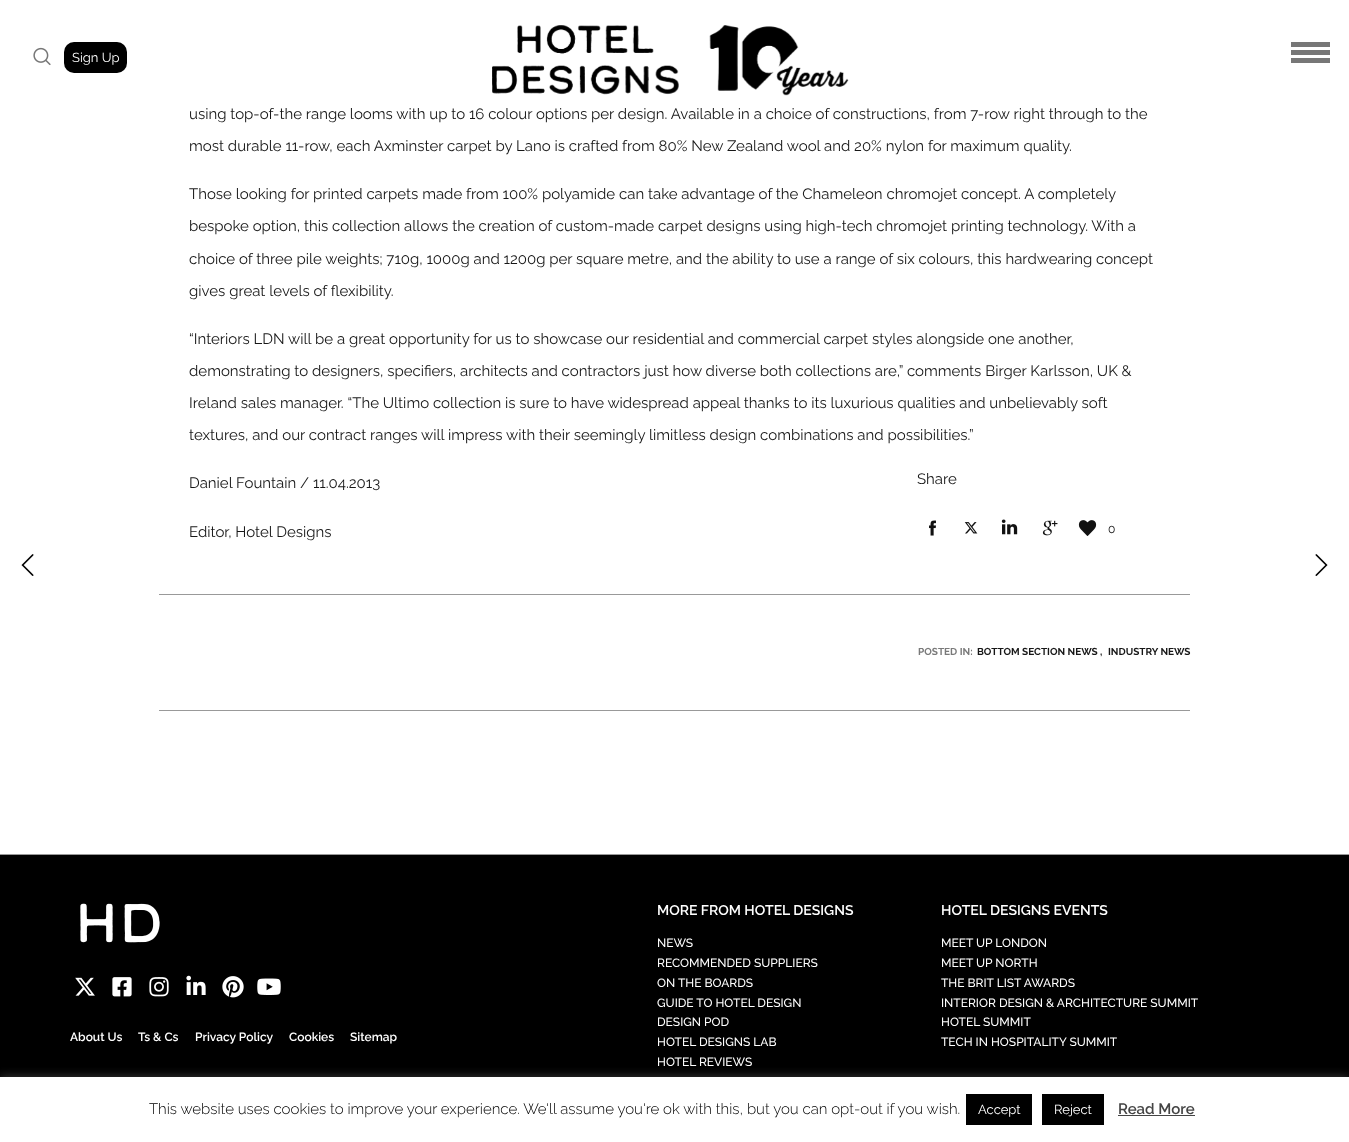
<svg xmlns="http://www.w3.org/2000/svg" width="1349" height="1142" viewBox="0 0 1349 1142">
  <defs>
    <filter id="blur1" x="-50%" y="-200%" width="200%" height="500%"><feGaussianBlur stdDeviation="5"/></filter>
  </defs>
  <rect width="100%" height="100%" fill="#ffffff"/>
  <image x="33" y="47" width="18" height="19" href="img1.png"/>
  <rect x="64" y="42" width="63" height="31" rx="10" fill="#000000"/>
  <text x="72" y="62" font-family="Raleway" font-size="13" fill="#ffffff">Sign Up</text>
  <image x="492" y="25" width="357" height="71" href="img2.png"/>
  <rect x="1291" y="42" width="39" height="5" fill="#777777"/>
  <rect x="1291" y="50" width="39" height="5" fill="#777777"/>
  <rect x="1291" y="58" width="39" height="5" fill="#777777"/>
  <rect x="159" y="594" width="1031" height="1" fill="#999999"/>
  <text x="189" y="119" font-family="Raleway" font-size="15" fill="#171717">using top-of-the range looms with up to 16 colour options per design. Available in a choice of constructions, from 7-row right through to the</text>
  <text x="189" y="151" font-family="Raleway" font-size="15" fill="#171717">most durable 11-row, each Axminster carpet by Lano is crafted from 80% New Zealand wool and 20% nylon for maximum quality.</text>
  <text x="189" y="199" font-family="Raleway" font-size="15" fill="#171717">Those looking for printed carpets made from 100% polyamide can take advantage of the Chameleon chromojet concept. A completely</text>
  <text x="189" y="231" font-family="Raleway" font-size="15" fill="#171717">bespoke option, this collection allows the creation of custom-made carpet designs using high-tech chromojet printing technology. With a</text>
  <text x="189" y="264" font-family="Raleway" font-size="15" fill="#171717">choice of three pile weights; 710g, 1000g and 1200g per square metre, and the ability to use a range of six colours, this hardwearing concept</text>
  <text x="189" y="296" font-family="Raleway" font-size="15" fill="#171717">gives great levels of flexibility.</text>
  <text x="189" y="344" font-family="Raleway" font-size="15" fill="#171717">“Interiors LDN will be a great opportunity for us to showcase our residential and commercial carpet styles alongside one another,</text>
  <text x="189" y="376" font-family="Raleway" font-size="15" fill="#171717">demonstrating to designers, specifiers, architects and contractors just how diverse both collections are,” comments Birger Karlsson, UK &amp;</text>
  <text x="189" y="408" font-family="Raleway" font-size="15" fill="#171717">Ireland sales manager. “The Ultimo collection is sure to have widespread appeal thanks to its luxurious qualities and unbelievably soft</text>
  <text x="189" y="440" font-family="Raleway" font-size="15" fill="#171717">textures, and our contract ranges will impress with their seemingly limitless design combinations and possibilities.”</text>
  <text x="189" y="488" font-family="Raleway" font-size="15" fill="#171717">Daniel Fountain / 11.04.2013</text>
  <text x="189" y="537" font-family="Raleway" font-size="15" fill="#171717">Editor, Hotel Designs</text>
  <text x="917" y="484" font-family="Raleway" font-size="15" fill="#171717">Share</text>
  <image x="929" y="520" width="7" height="16" href="img3.png"/>
  <image x="964" y="522" width="14" height="12" href="img4.png"/>
  <image x="1001" y="519" width="17" height="16" href="img5.png"/>
  <image x="1042" y="520" width="16" height="16" href="img6.png"/>
  <image x="1078" y="520" width="19" height="16" href="img7.png"/>
  <text x="1108" y="533" font-family="Raleway" font-size="12" fill="#171717">0</text>
  <image x="21" y="554" width="13" height="22" href="img8.png"/>
  <image x="1315" y="554" width="13" height="22" href="img9.png"/>
  <rect x="159" y="710" width="1031" height="1" fill="#999999"/>
  <text x="918" y="655" font-family="Raleway" font-size="10" font-weight="bold" fill="#7a7a7a">POSTED IN:</text>
  <text x="977" y="655" font-family="Raleway" font-size="10" font-weight="bold" fill="#171717">BOTTOM SECTION NEWS ,</text>
  <text x="1108" y="655" font-family="Raleway" font-size="10" font-weight="bold" fill="#171717">INDUSTRY NEWS</text>
  <rect x="0" y="854" width="1349" height="1" fill="#999999"/>
  <rect x="0" y="855" width="1349" height="222" fill="#000000"/>
  <image x="80" y="903" width="80" height="40" href="img10.png"/>
  <image x="75" y="977" width="20" height="19" href="img11.png"/>
  <image x="112" y="977" width="20" height="20" href="img12.png"/>
  <image x="149" y="977" width="20" height="20" href="img13.png"/>
  <image x="186" y="975" width="20" height="20" href="img14.png"/>
  <image x="222" y="976" width="22" height="22" href="img15.png"/>
  <image x="257" y="978" width="24" height="17" href="img16.png"/>
  <text x="70" y="1041" font-family="Raleway" font-size="12" font-weight="600" fill="#ffffff">About Us</text>
  <text x="138" y="1041" font-family="Raleway" font-size="12" font-weight="600" fill="#ffffff">Ts &amp; Cs</text>
  <text x="195" y="1041" font-family="Raleway" font-size="12" font-weight="600" fill="#ffffff">Privacy Policy</text>
  <text x="289" y="1041" font-family="Raleway" font-size="12" font-weight="600" fill="#ffffff">Cookies</text>
  <text x="350" y="1041" font-family="Raleway" font-size="12" font-weight="600" fill="#ffffff">Sitemap</text>
  <text x="657" y="915" font-family="Raleway" font-size="14" font-weight="600" fill="#ffffff">MORE FROM HOTEL DESIGNS</text>
  <text x="657" y="947" font-family="Raleway" font-size="12" font-weight="500" fill="#ffffff">NEWS</text>
  <text x="657" y="967" font-family="Raleway" font-size="12" font-weight="500" fill="#ffffff">RECOMMENDED SUPPLIERS</text>
  <text x="657" y="987" font-family="Raleway" font-size="12" font-weight="500" fill="#ffffff">ON THE BOARDS</text>
  <text x="657" y="1007" font-family="Raleway" font-size="12" font-weight="500" fill="#ffffff">GUIDE TO HOTEL DESIGN</text>
  <text x="657" y="1026" font-family="Raleway" font-size="12" font-weight="500" fill="#ffffff">DESIGN POD</text>
  <text x="657" y="1046" font-family="Raleway" font-size="12" font-weight="500" fill="#ffffff">HOTEL DESIGNS LAB</text>
  <text x="657" y="1066" font-family="Raleway" font-size="12" font-weight="500" fill="#ffffff">HOTEL REVIEWS</text>
  <text x="941" y="915" font-family="Raleway" font-size="14" font-weight="600" fill="#ffffff">HOTEL DESIGNS EVENTS</text>
  <text x="941" y="947" font-family="Raleway" font-size="12" font-weight="500" fill="#ffffff">MEET UP LONDON</text>
  <text x="941" y="967" font-family="Raleway" font-size="12" font-weight="500" fill="#ffffff">MEET UP NORTH</text>
  <text x="941" y="987" font-family="Raleway" font-size="12" font-weight="500" fill="#ffffff">THE BRIT LIST AWARDS</text>
  <text x="941" y="1007" font-family="Raleway" font-size="12" font-weight="500" fill="#ffffff">INTERIOR DESIGN &amp; ARCHITECTURE SUMMIT</text>
  <text x="941" y="1026" font-family="Raleway" font-size="12" font-weight="500" fill="#ffffff">HOTEL SUMMIT</text>
  <text x="941" y="1046" font-family="Raleway" font-size="12" font-weight="500" fill="#ffffff">TECH IN HOSPITALITY SUMMIT</text>
  <rect x="0" y="1076" width="1349" height="65" fill="#acabab" fill-opacity="0.3" filter="url(#blur1)"/>
  <rect x="0" y="1077" width="1349" height="65" fill="#ffffff"/>
  <text x="149" y="1114" font-family="Raleway" font-size="15" font-weight="300" fill="#000000">This website uses cookies to improve your experience. We'll assume you're ok with this, but you can opt-out if you wish.</text>
  <rect x="966" y="1094" width="66" height="31" fill="#000000"/>
  <text x="978" y="1114" font-family="Raleway" font-size="13" fill="#ffffff">Accept</text>
  <rect x="1042" y="1094" width="62" height="31" fill="#000000"/>
  <text x="1054" y="1114" font-family="Raleway" font-size="13" fill="#ffffff">Reject</text>
  <text x="1118" y="1114" font-family="Raleway" font-size="15" font-weight="600" fill="#444444">Read More</text>
  <rect x="1118" y="1115" width="77" height="1" fill="#444444"/>
</svg>
